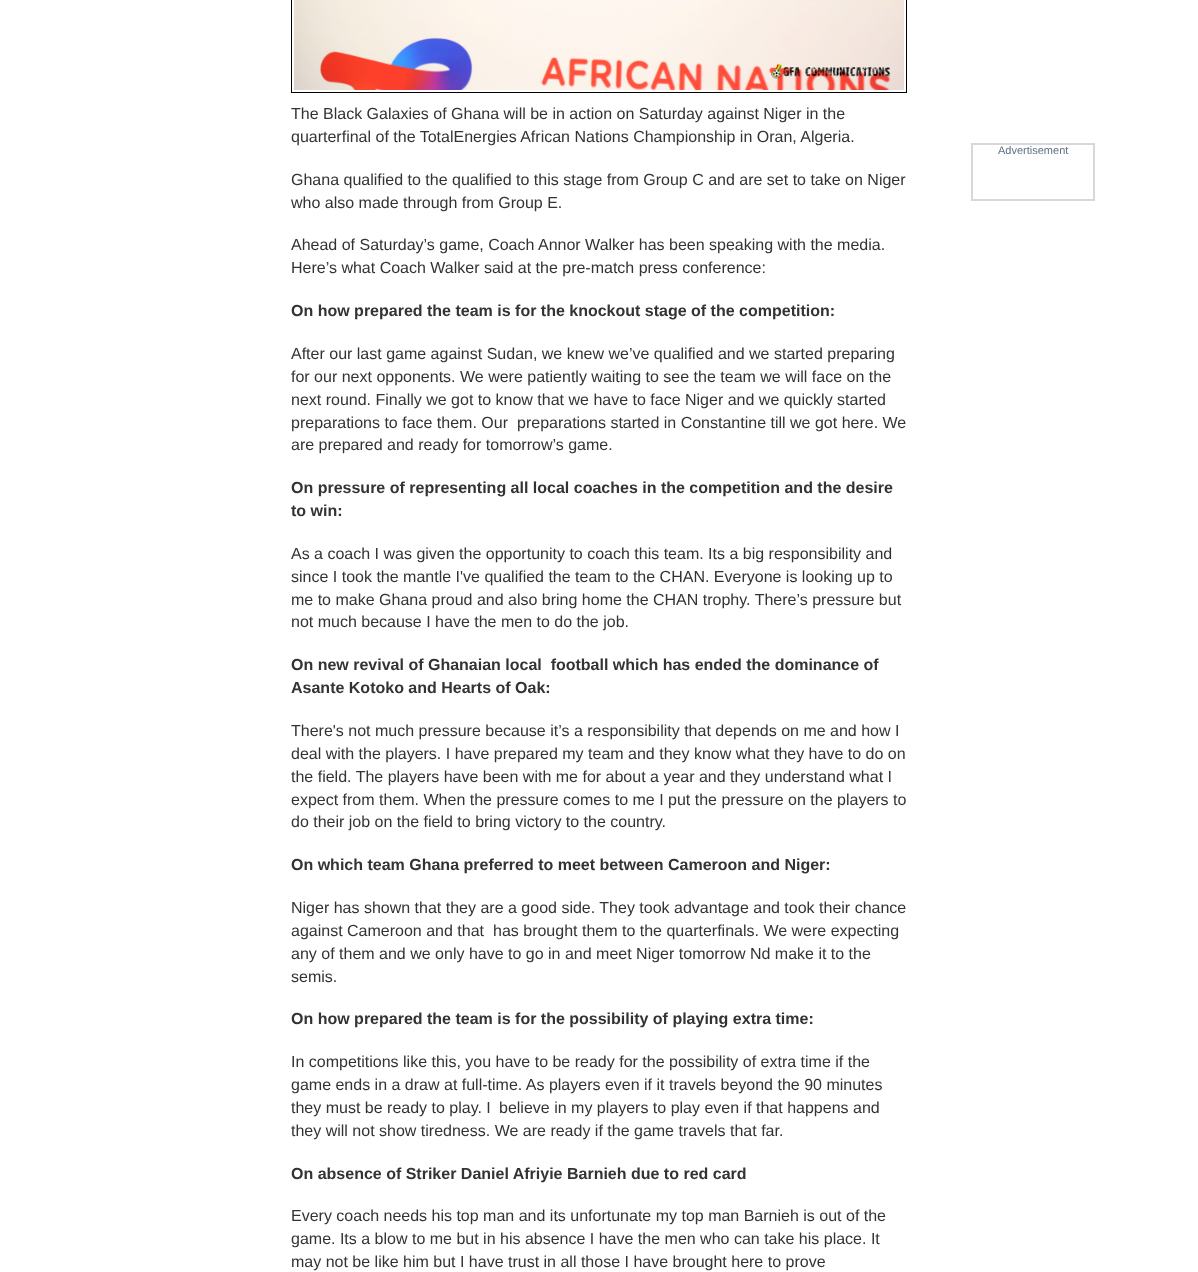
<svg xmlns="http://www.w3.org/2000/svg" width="1198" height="1272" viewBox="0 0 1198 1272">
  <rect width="100%" height="100%" fill="#ffffff"/>
  <rect x="291.5" y="-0.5" width="615" height="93" fill="none" stroke="#000000"/>
  <image x="294" y="0" width="610" height="90" href="img1.png"/>
  <text x="291" y="119" font-family="Liberation Sans" font-size="16" fill="#333333">The Black Galaxies of Ghana will be in action on Saturday against Niger in the</text>
  <text x="291" y="142" font-family="Liberation Sans" font-size="16" fill="#333333">quarterfinal of the TotalEnergies African Nations Championship in Oran, Algeria.</text>
  <text x="291" y="185" font-family="Liberation Sans" font-size="16" fill="#333333">Ghana qualified to the qualified to this stage from Group C and are set to take on Niger</text>
  <text x="291" y="208" font-family="Liberation Sans" font-size="16" fill="#333333">who also made through from Group E.</text>
  <text x="291" y="250" font-family="Liberation Sans" font-size="16" fill="#333333">Ahead of Saturday’s game, Coach Annor Walker has been speaking with the media.</text>
  <text x="291" y="273" font-family="Liberation Sans" font-size="16" fill="#333333">Here’s what Coach Walker said at the pre-match press conference:</text>
  <text x="291" y="316" font-family="Liberation Sans" font-size="16" font-weight="bold" fill="#333333">On how prepared the team is for the knockout stage of the competition:</text>
  <text x="291" y="359" font-family="Liberation Sans" font-size="16" fill="#333333">After our last game against Sudan, we knew we’ve qualified and we started preparing</text>
  <text x="291" y="382" font-family="Liberation Sans" font-size="16" fill="#333333">for our next opponents. We were patiently waiting to see the team we will face on the</text>
  <text x="291" y="405" font-family="Liberation Sans" font-size="16" fill="#333333">next round. Finally we got to know that we have to face Niger and we quickly started</text>
  <text x="291" y="428" font-family="Liberation Sans" font-size="16" fill="#333333">preparations to face them. Our</text>
  <text x="517" y="428" font-family="Liberation Sans" font-size="16" fill="#333333">preparations started in Constantine till we got here. We</text>
  <text x="291" y="450" font-family="Liberation Sans" font-size="16" fill="#333333">are prepared and ready for tomorrow’s game.</text>
  <text x="291" y="493" font-family="Liberation Sans" font-size="16" font-weight="bold" fill="#333333">On pressure of representing all local coaches in the competition and the desire</text>
  <text x="291" y="516" font-family="Liberation Sans" font-size="16" font-weight="bold" fill="#333333">to win:</text>
  <text x="291" y="559" font-family="Liberation Sans" font-size="16" fill="#333333">As a coach I was given the opportunity to coach this team. Its a big responsibility and</text>
  <text x="291" y="582" font-family="Liberation Sans" font-size="16" fill="#333333">since I took the mantle I've qualified the team to the CHAN. Everyone is looking up to</text>
  <text x="291" y="605" font-family="Liberation Sans" font-size="16" fill="#333333">me to make Ghana proud and also bring home the CHAN trophy. There’s pressure but</text>
  <text x="291" y="627" font-family="Liberation Sans" font-size="16" fill="#333333">not much because I have the men to do the job.</text>
  <text x="291" y="670" font-family="Liberation Sans" font-size="16" font-weight="bold" fill="#333333" xml:space="preserve">On new revival of Ghanaian local  football which has ended the dominance of</text>
  <text x="291" y="693" font-family="Liberation Sans" font-size="16" font-weight="bold" fill="#333333">Asante Kotoko and Hearts of Oak:</text>
  <text x="291" y="736" font-family="Liberation Sans" font-size="16" fill="#333333">There's not much pressure because it’s a responsibility that depends on me and how I</text>
  <text x="291" y="759" font-family="Liberation Sans" font-size="16" fill="#333333">deal with the players. I have prepared my team and they know what they have to do on</text>
  <text x="291" y="782" font-family="Liberation Sans" font-size="16" fill="#333333">the field. The players have been with me for about a year and they understand what I</text>
  <text x="291" y="805" font-family="Liberation Sans" font-size="16" fill="#333333">expect from them. When the pressure comes to me I put the pressure on the players to</text>
  <text x="291" y="827" font-family="Liberation Sans" font-size="16" fill="#333333">do their job on the field to bring victory to the country.</text>
  <text x="291" y="870" font-family="Liberation Sans" font-size="16" font-weight="bold" fill="#333333">On which team Ghana preferred to meet between Cameroon and Niger:</text>
  <text x="291" y="913" font-family="Liberation Sans" font-size="16" fill="#333333">Niger has shown that they are a good side. They took advantage and took their chance</text>
  <text x="291" y="936" font-family="Liberation Sans" font-size="16" fill="#333333">against Cameroon and that</text>
  <text x="493" y="936" font-family="Liberation Sans" font-size="16" fill="#333333">has brought them to the quarterfinals. We were expecting</text>
  <text x="291" y="959" font-family="Liberation Sans" font-size="16" fill="#333333">any of them and we only have to go in and meet Niger tomorrow Nd make it to the</text>
  <text x="291" y="982" font-family="Liberation Sans" font-size="16" fill="#333333">semis.</text>
  <text x="291" y="1024" font-family="Liberation Sans" font-size="16" font-weight="bold" fill="#333333">On how prepared the team is for the possibility of playing extra time:</text>
  <text x="291" y="1067" font-family="Liberation Sans" font-size="16" fill="#333333">In competitions like this, you have to be ready for the possibility of extra time if the</text>
  <text x="291" y="1090" font-family="Liberation Sans" font-size="16" fill="#333333">game ends in a draw at full-time. As players even if it travels beyond the 90 minutes</text>
  <text x="291" y="1113" font-family="Liberation Sans" font-size="16" fill="#333333">they must be ready to play. I</text>
  <text x="499" y="1113" font-family="Liberation Sans" font-size="16" fill="#333333">believe in my players to play even if that happens and</text>
  <text x="291" y="1136" font-family="Liberation Sans" font-size="16" fill="#333333">they will not show tiredness. We are ready if the game travels that far.</text>
  <text x="291" y="1179" font-family="Liberation Sans" font-size="16" font-weight="bold" fill="#333333">On absence of Striker Daniel Afriyie Barnieh due to red card</text>
  <text x="291" y="1221" font-family="Liberation Sans" font-size="16" fill="#333333">Every coach needs his top man and its unfortunate my top man Barnieh is out of the</text>
  <text x="291" y="1244" font-family="Liberation Sans" font-size="16" fill="#333333">game. Its a blow to me but in his absence I have the men who can take his place. It</text>
  <text x="291" y="1267" font-family="Liberation Sans" font-size="16" fill="#333333">may not be like him but I have trust in all those I have brought here to prove</text>
  <rect x="972" y="144" width="122" height="56" fill="none" stroke="#d8d8d8" stroke-width="2"/>
  <text x="998" y="154" font-family="Liberation Sans" font-size="11" fill="#5d6f86">Advertisement</text>
</svg>
